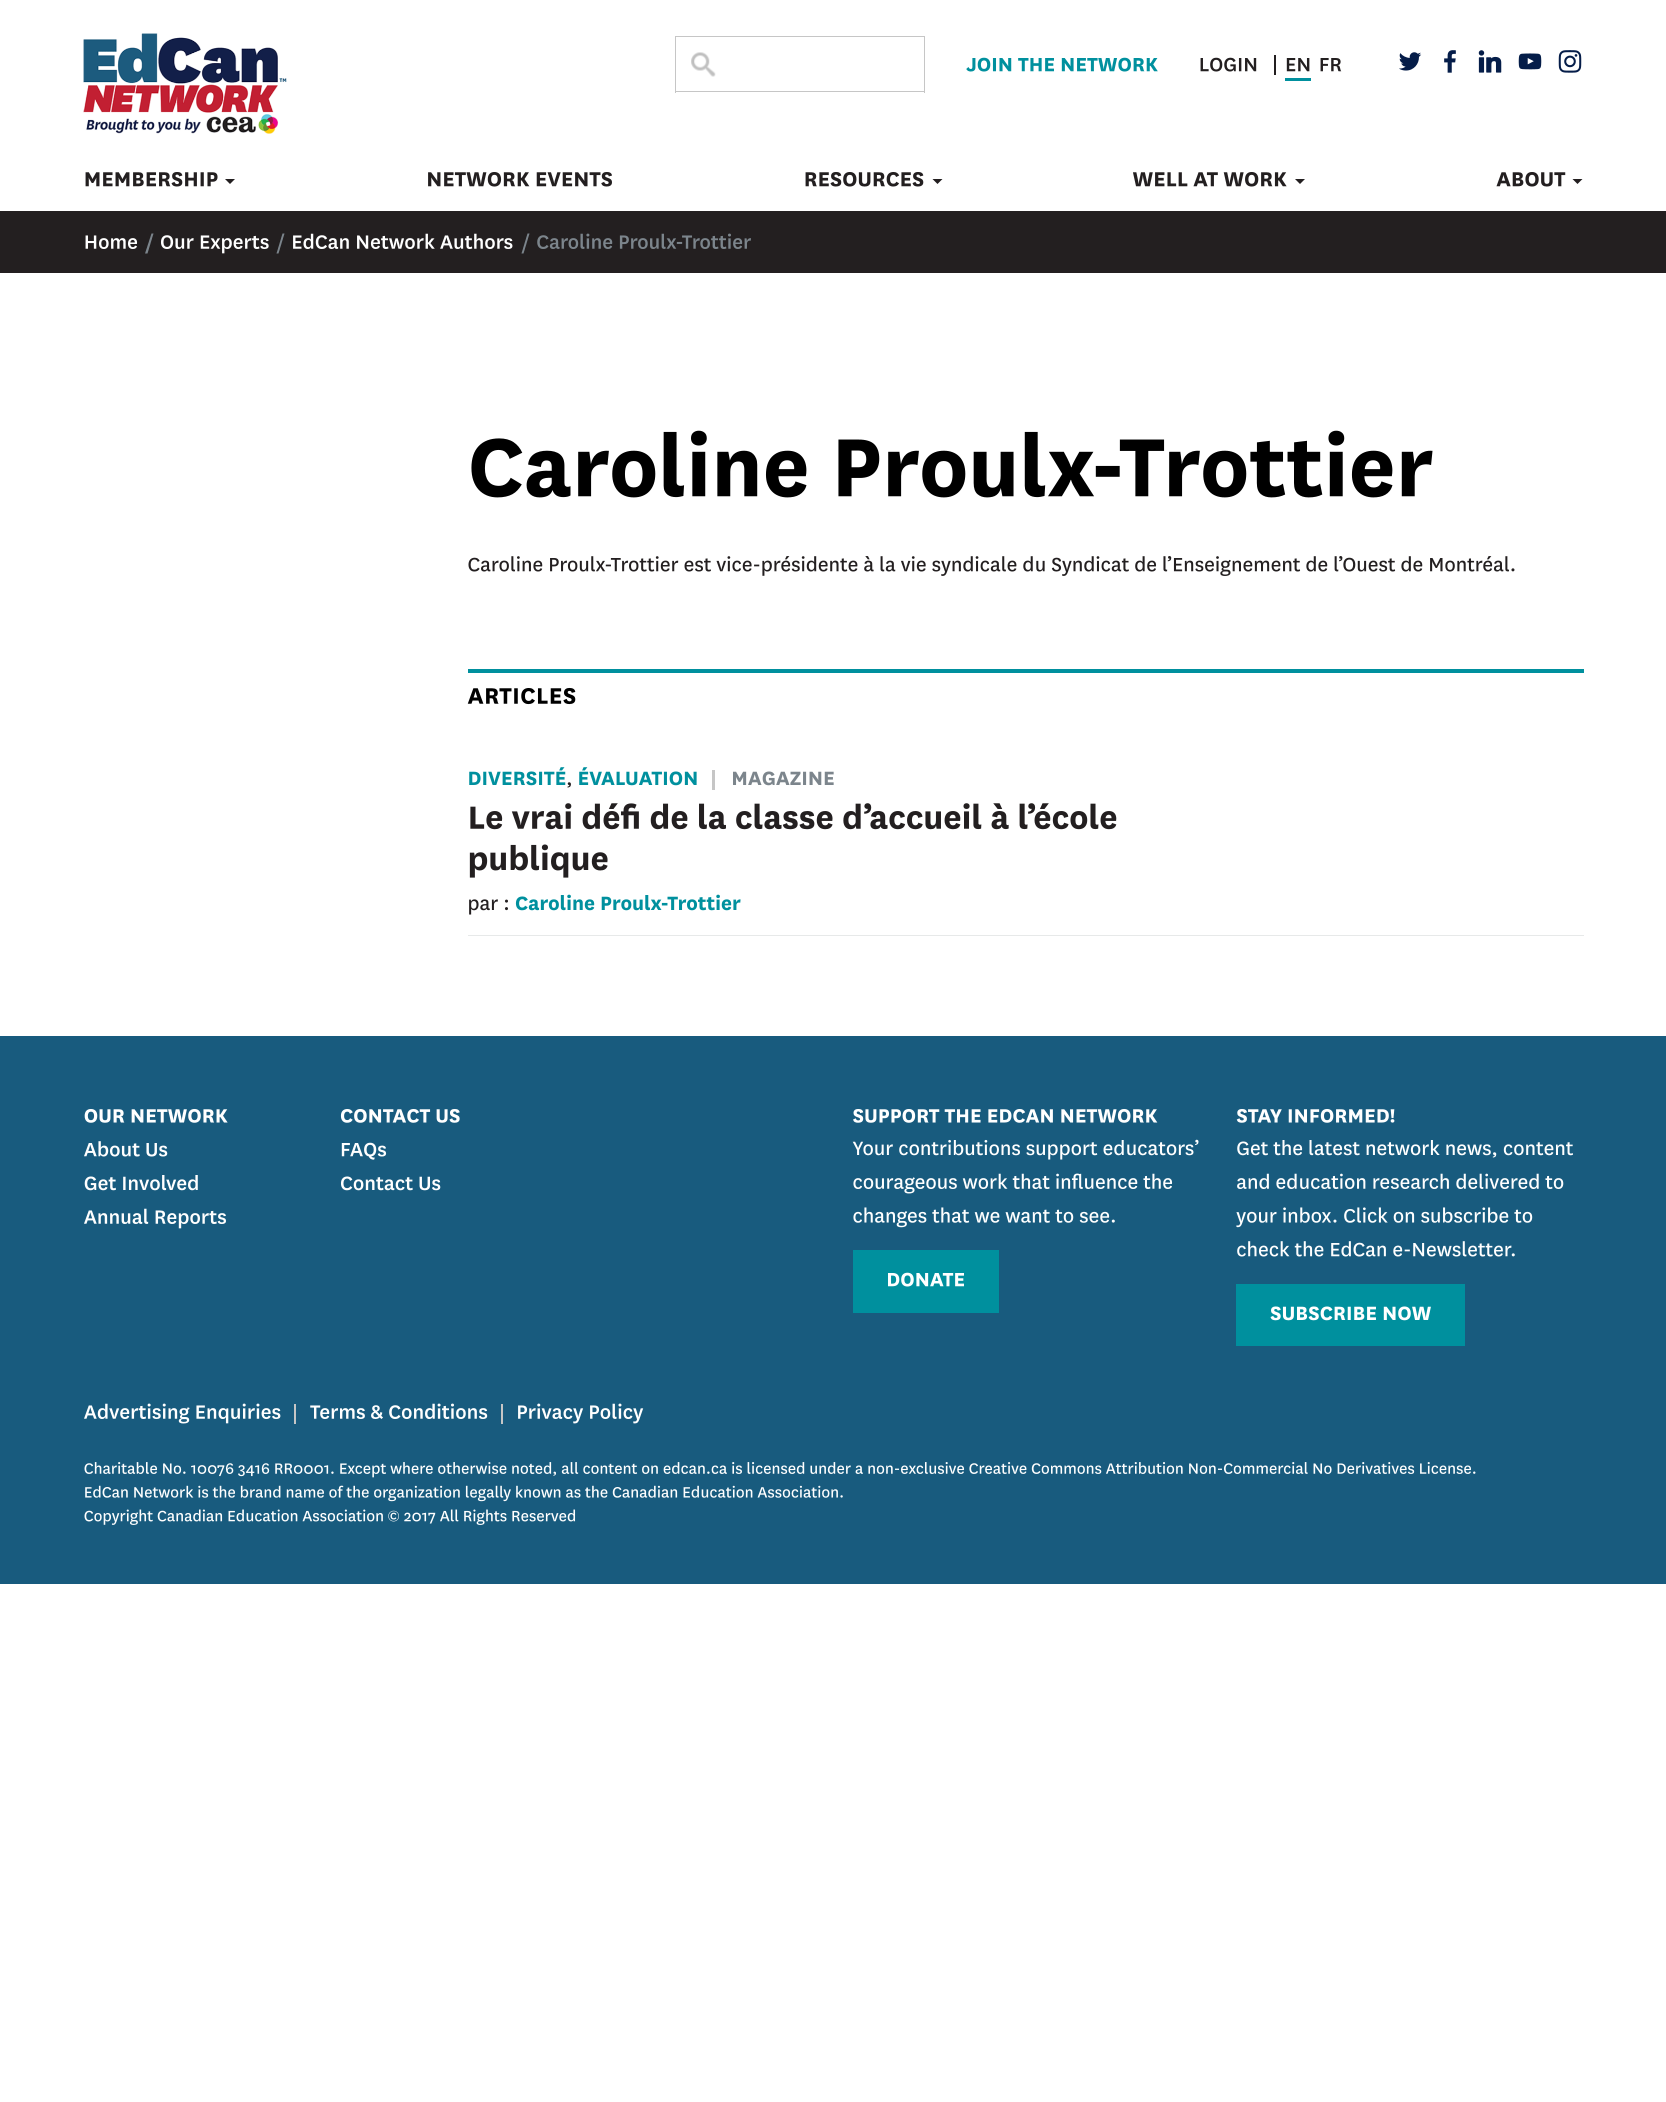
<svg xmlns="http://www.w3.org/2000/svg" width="1666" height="2102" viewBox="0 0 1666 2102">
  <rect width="100%" height="100%" fill="#ffffff"/>
  <image x="83" y="33" width="196" height="80" href="img1.png"/>
  <image x="83" y="33" width="204" height="101" href="img2.png"/>
  <rect x="675" y="36" width="250" height="1" fill="#c6c6c6"/>
  <rect x="924" y="36" width="1" height="57" fill="#c6c6c6"/>
  <rect x="675" y="91" width="250" height="1" fill="#c6c6c6"/>
  <rect x="675" y="36" width="1" height="57" fill="#c6c6c6"/>
  <image x="691" y="52" width="25" height="25" href="img3.png"/>
  <image x="966" y="57" width="192" height="15" href="img4.png"/>
  <image x="1200" y="57" width="57" height="15" href="img5.png"/>
  <rect x="1274" y="55" width="2" height="20" fill="#231f20"/>
  <image x="1286" y="58" width="24" height="14" href="img6.png"/>
  <rect x="1285" y="78" width="26" height="3" fill="#00909e"/>
  <image x="1320" y="58" width="22" height="14" href="img7.png"/>
  <image x="1399" y="52" width="23" height="19" href="img8.png"/>
  <image x="1444" y="50" width="12" height="23" href="img9.png"/>
  <image x="1478" y="50" width="24" height="23" href="img10.png"/>
  <image x="1518" y="53" width="24" height="17" href="img11.png"/>
  <image x="1558" y="50" width="24" height="23" href="img12.png"/>
  <image x="85" y="172" width="133" height="15" href="img13.png"/>
  <path d="M225 179H235L230 184Z" fill="#231f20"/>
  <image x="428" y="172" width="184" height="15" href="img14.png"/>
  <image x="805" y="172" width="119" height="15" href="img15.png"/>
  <path d="M932.5 179H942.5L937.5 184Z" fill="#231f20"/>
  <image x="1133" y="172" width="154" height="15" href="img16.png"/>
  <path d="M1295 179H1305L1300 184Z" fill="#231f20"/>
  <image x="1496" y="172" width="70" height="15" href="img17.png"/>
  <path d="M1572.5 179H1582.5L1577.5 184Z" fill="#231f20"/>
  <rect x="0" y="211" width="1666" height="62" fill="#231f20"/>
  <image x="85" y="235" width="53" height="14" href="img18.png"/>
  <path d="M147.5 253.5H145L151.5 233.5H153.5Z" fill="#7c858c"/>
  <image x="161" y="235" width="108" height="19" href="img19.png"/>
  <path d="M278.5 253.5H276.5L282.5 233.5H284.5Z" fill="#7c858c"/>
  <image x="293" y="233" width="220" height="16" href="img20.png"/>
  <path d="M523.5 253.5H521.5L527.5 233.5H529.5Z" fill="#7c858c"/>
  <image x="537" y="233" width="214" height="16" href="img21.png"/>
  <image x="471" y="430" width="962" height="68" href="img22.png"/>
  <image x="468" y="556" width="1047" height="20" href="img23.png"/>
  <rect x="468" y="669" width="1116" height="4" fill="#00909e"/>
  <image x="467" y="687" width="109" height="18" href="img24.png"/>
  <rect x="468" y="935" width="1116" height="1" fill="#e7e9e9"/>
  <image x="469" y="767" width="97" height="19" href="img25.png"/>
  <image x="567" y="782" width="4" height="6" href="img26.png"/>
  <image x="579" y="767" width="118" height="19" href="img27.png"/>
  <rect x="712" y="770" width="3" height="20" fill="#c6c6c6"/>
  <image x="733" y="771" width="101" height="15" href="img28.png"/>
  <image x="470" y="803" width="647" height="27" href="img29.png"/>
  <image x="469" y="844" width="139" height="34" href="img30.png"/>
  <image x="469" y="899" width="39" height="16" href="img31.png"/>
  <image x="515" y="894" width="226" height="17" href="img32.png"/>
  <rect x="0" y="1036" width="1666" height="548" fill="#185b7e"/>
  <image x="84" y="1109" width="144" height="14" href="img33.png"/>
  <image x="84" y="1141" width="84" height="16" href="img34.png"/>
  <image x="84" y="1175" width="114" height="16" href="img35.png"/>
  <image x="84" y="1208" width="142" height="21" href="img36.png"/>
  <image x="340" y="1109" width="120" height="14" href="img37.png"/>
  <image x="341" y="1142" width="46" height="18" href="img38.png"/>
  <image x="341" y="1176" width="100" height="15" href="img39.png"/>
  <image x="853" y="1109" width="305" height="14" href="img40.png"/>
  <image x="852" y="1139" width="347" height="21" href="img41.png"/>
  <image x="853" y="1173" width="320" height="21" href="img42.png"/>
  <image x="853" y="1207" width="262" height="21" href="img43.png"/>
  <rect x="853" y="1250" width="146" height="63" fill="#00909e"/>
  <image x="888" y="1272" width="76" height="15" href="img44.png"/>
  <image x="1236" y="1109" width="159" height="14" href="img45.png"/>
  <image x="1237" y="1140" width="336" height="18" href="img46.png"/>
  <image x="1237" y="1173" width="327" height="16" href="img47.png"/>
  <image x="1236" y="1207" width="297" height="21" href="img48.png"/>
  <image x="1237" y="1241" width="278" height="16" href="img49.png"/>
  <rect x="1236" y="1284" width="229" height="62" fill="#00909e"/>
  <image x="1270" y="1306" width="161" height="15" href="img50.png"/>
  <image x="84" y="1403" width="197" height="21" href="img51.png"/>
  <rect x="294" y="1404" width="2" height="20" fill="#c6c6c6"/>
  <image x="310" y="1403" width="178" height="16" href="img52.png"/>
  <rect x="501" y="1404" width="2" height="20" fill="#c6c6c6"/>
  <image x="518" y="1403" width="126" height="21" href="img53.png"/>
  <image x="84" y="1462" width="1392" height="16" href="img54.png"/>
  <image x="85" y="1485" width="758" height="17" href="img55.png"/>
  <image x="84" y="1509" width="299" height="16" href="img56.png"/>
  <image x="388" y="1509" width="188" height="16" href="img57.png"/>
</svg>
